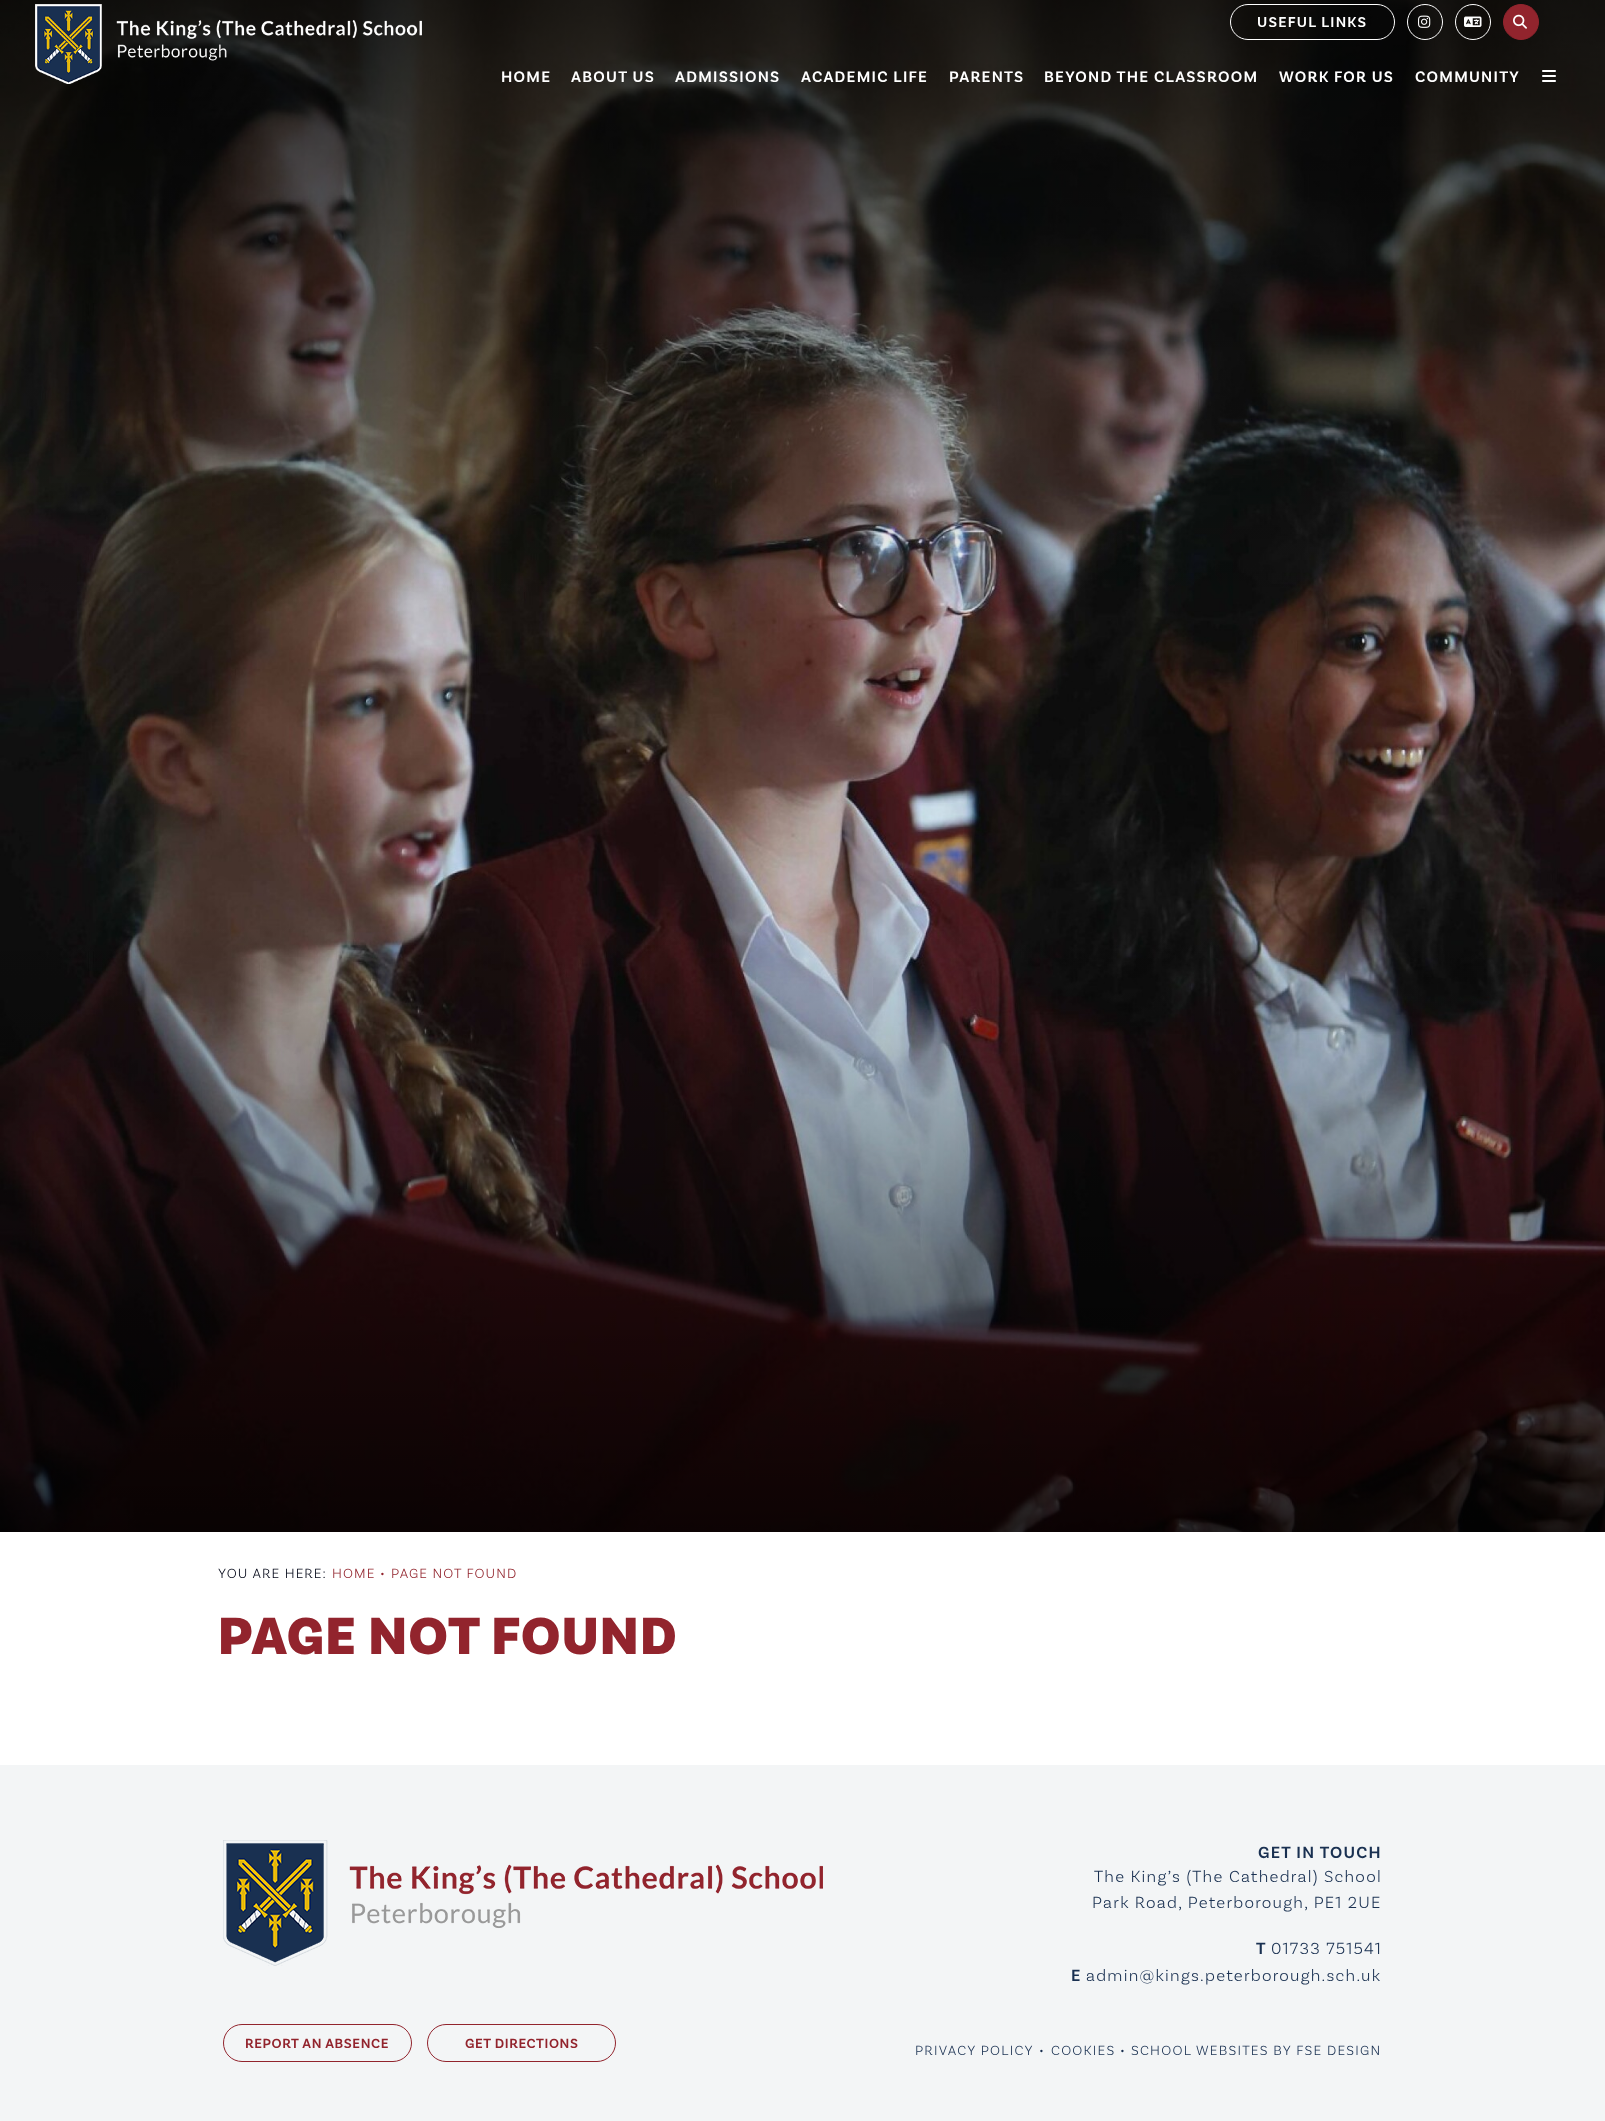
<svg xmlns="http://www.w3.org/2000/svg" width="1605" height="2121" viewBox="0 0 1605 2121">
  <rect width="100%" height="100%" fill="#ffffff"/>
  <image x="0" y="0" width="1605" height="1532" href="img1.png"/>
  <rect x="1230.5" y="4.5" width="164" height="35" rx="17.5" fill="none" stroke="#ffffff"/>
  <text x="1257" y="27" font-family="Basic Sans" font-size="15" font-weight="600" letter-spacing="1.25" fill="#ffffff">USEFUL LINKS</text>
  <circle cx="1425" cy="22" r="17.5" fill="none" stroke="#ffffff"/>
  <image x="1418" y="15" width="13" height="13" href="img2.png"/>
  <circle cx="1473" cy="22" r="17.5" fill="none" stroke="#ffffff"/>
  <image x="1464" y="16" width="18" height="11" href="img3.png"/>
  <circle cx="1521" cy="22" r="17.5" fill="#92242d" stroke="#92242d"/>
  <image x="1513" y="14" width="14" height="15" href="img4.png"/>
  <image x="35" y="4" width="387" height="80" href="img5.png"/>
  <text x="501" y="82" font-family="Basic Sans" font-size="16" font-weight="600" letter-spacing="1.25" fill="#ffffff">HOME</text>
  <text x="571" y="82" font-family="Basic Sans" font-size="16" font-weight="600" letter-spacing="1.25" fill="#ffffff">ABOUT US</text>
  <text x="675" y="82" font-family="Basic Sans" font-size="16" font-weight="600" letter-spacing="1.25" fill="#ffffff">ADMISSIONS</text>
  <text x="801" y="82" font-family="Basic Sans" font-size="16" font-weight="600" letter-spacing="1.25" fill="#ffffff">ACADEMIC LIFE</text>
  <text x="949" y="82" font-family="Basic Sans" font-size="16" font-weight="600" letter-spacing="1.25" fill="#ffffff">PARENTS</text>
  <text x="1044" y="82" font-family="Basic Sans" font-size="16" font-weight="600" letter-spacing="1.25" fill="#ffffff">BEYOND THE CLASSROOM</text>
  <text x="1279" y="82" font-family="Basic Sans" font-size="16" font-weight="600" letter-spacing="1.25" fill="#ffffff">WORK FOR US</text>
  <text x="1415" y="82" font-family="Basic Sans" font-size="16" font-weight="600" letter-spacing="1.25" fill="#ffffff">COMMUNITY</text>
  <image x="1542" y="70" width="14" height="12" href="img6.png"/>
  <text x="218" y="1578" font-family="Basic Sans" font-size="14" font-weight="300" letter-spacing="1.1" fill="#010516">YOU ARE HERE:</text>
  <text x="332" y="1578" font-family="Basic Sans" font-size="14" font-weight="300" letter-spacing="1.1" fill="#92242d">HOME</text>
  <text x="380" y="1578" font-family="Basic Sans" font-size="14" font-weight="300" letter-spacing="1.1" fill="#92242d">•</text>
  <text x="391" y="1578" font-family="Basic Sans" font-size="14" font-weight="300" letter-spacing="1.1" fill="#92242d">PAGE NOT FOUND</text>
  <text x="218" y="1654" font-family="Basic Sans" font-size="54.75" font-weight="900" letter-spacing="1.25" fill="#92242d">PAGE NOT FOUND</text>
  <rect x="0" y="1765" width="1605" height="356" fill="#f3f5f6"/>
  <image x="223" y="1840" width="600" height="126" href="img7.png"/>
  <text x="1258" y="1858" font-family="Basic Sans" font-size="17" font-weight="600" letter-spacing="1.25" fill="#193051">GET IN TOUCH</text>
  <text x="1094" y="1882" font-family="Basic Sans" font-size="17" font-weight="300" letter-spacing="1.25" fill="#193051">The King’s (The Cathedral) School</text>
  <text x="1092" y="1908" font-family="Basic Sans" font-size="17" font-weight="300" letter-spacing="1.25" fill="#193051">Park Road, Peterborough, PE1 2UE</text>
  <text x="1256" y="1954" font-family="Basic Sans" font-size="17" font-weight="600" letter-spacing="1.25" fill="#193051">T</text>
  <text x="1271" y="1954" font-family="Basic Sans" font-size="17" font-weight="300" letter-spacing="1.25" fill="#193051">01733 751541</text>
  <text x="1071" y="1981" font-family="Basic Sans" font-size="17" font-weight="600" letter-spacing="1.25" fill="#193051">E</text>
  <text x="1086" y="1981" font-family="Basic Sans" font-size="17" font-weight="300" letter-spacing="1.25" fill="#193051">admin@kings.peterborough.sch.uk</text>
  <rect x="223.5" y="2024.5" width="188" height="37" rx="18.5" fill="none" stroke="#92242d"/>
  <text x="245" y="2048" font-family="Basic Sans" font-size="14" font-weight="600" letter-spacing="0.6" fill="#92242d">REPORT AN ABSENCE</text>
  <rect x="427.5" y="2024.5" width="188" height="37" rx="18.5" fill="none" stroke="#92242d"/>
  <text x="465" y="2048" font-family="Basic Sans" font-size="14" font-weight="600" letter-spacing="0.6" fill="#92242d">GET DIRECTIONS</text>
  <text x="915" y="2055" font-family="Basic Sans" font-size="14" font-weight="300" letter-spacing="1.25" fill="#193051">PRIVACY POLICY</text>
  <text x="1039" y="2055" font-family="Basic Sans" font-size="14" font-weight="300" letter-spacing="1.25" fill="#193051">•</text>
  <text x="1051" y="2055" font-family="Basic Sans" font-size="14" font-weight="300" letter-spacing="1.25" fill="#193051">COOKIES</text>
  <text x="1120" y="2055" font-family="Basic Sans" font-size="14" font-weight="300" letter-spacing="1.25" fill="#193051">•</text>
  <text x="1131" y="2055" font-family="Basic Sans" font-size="14" font-weight="300" letter-spacing="1.25" fill="#193051">SCHOOL WEBSITES BY FSE DESIGN</text>
</svg>
